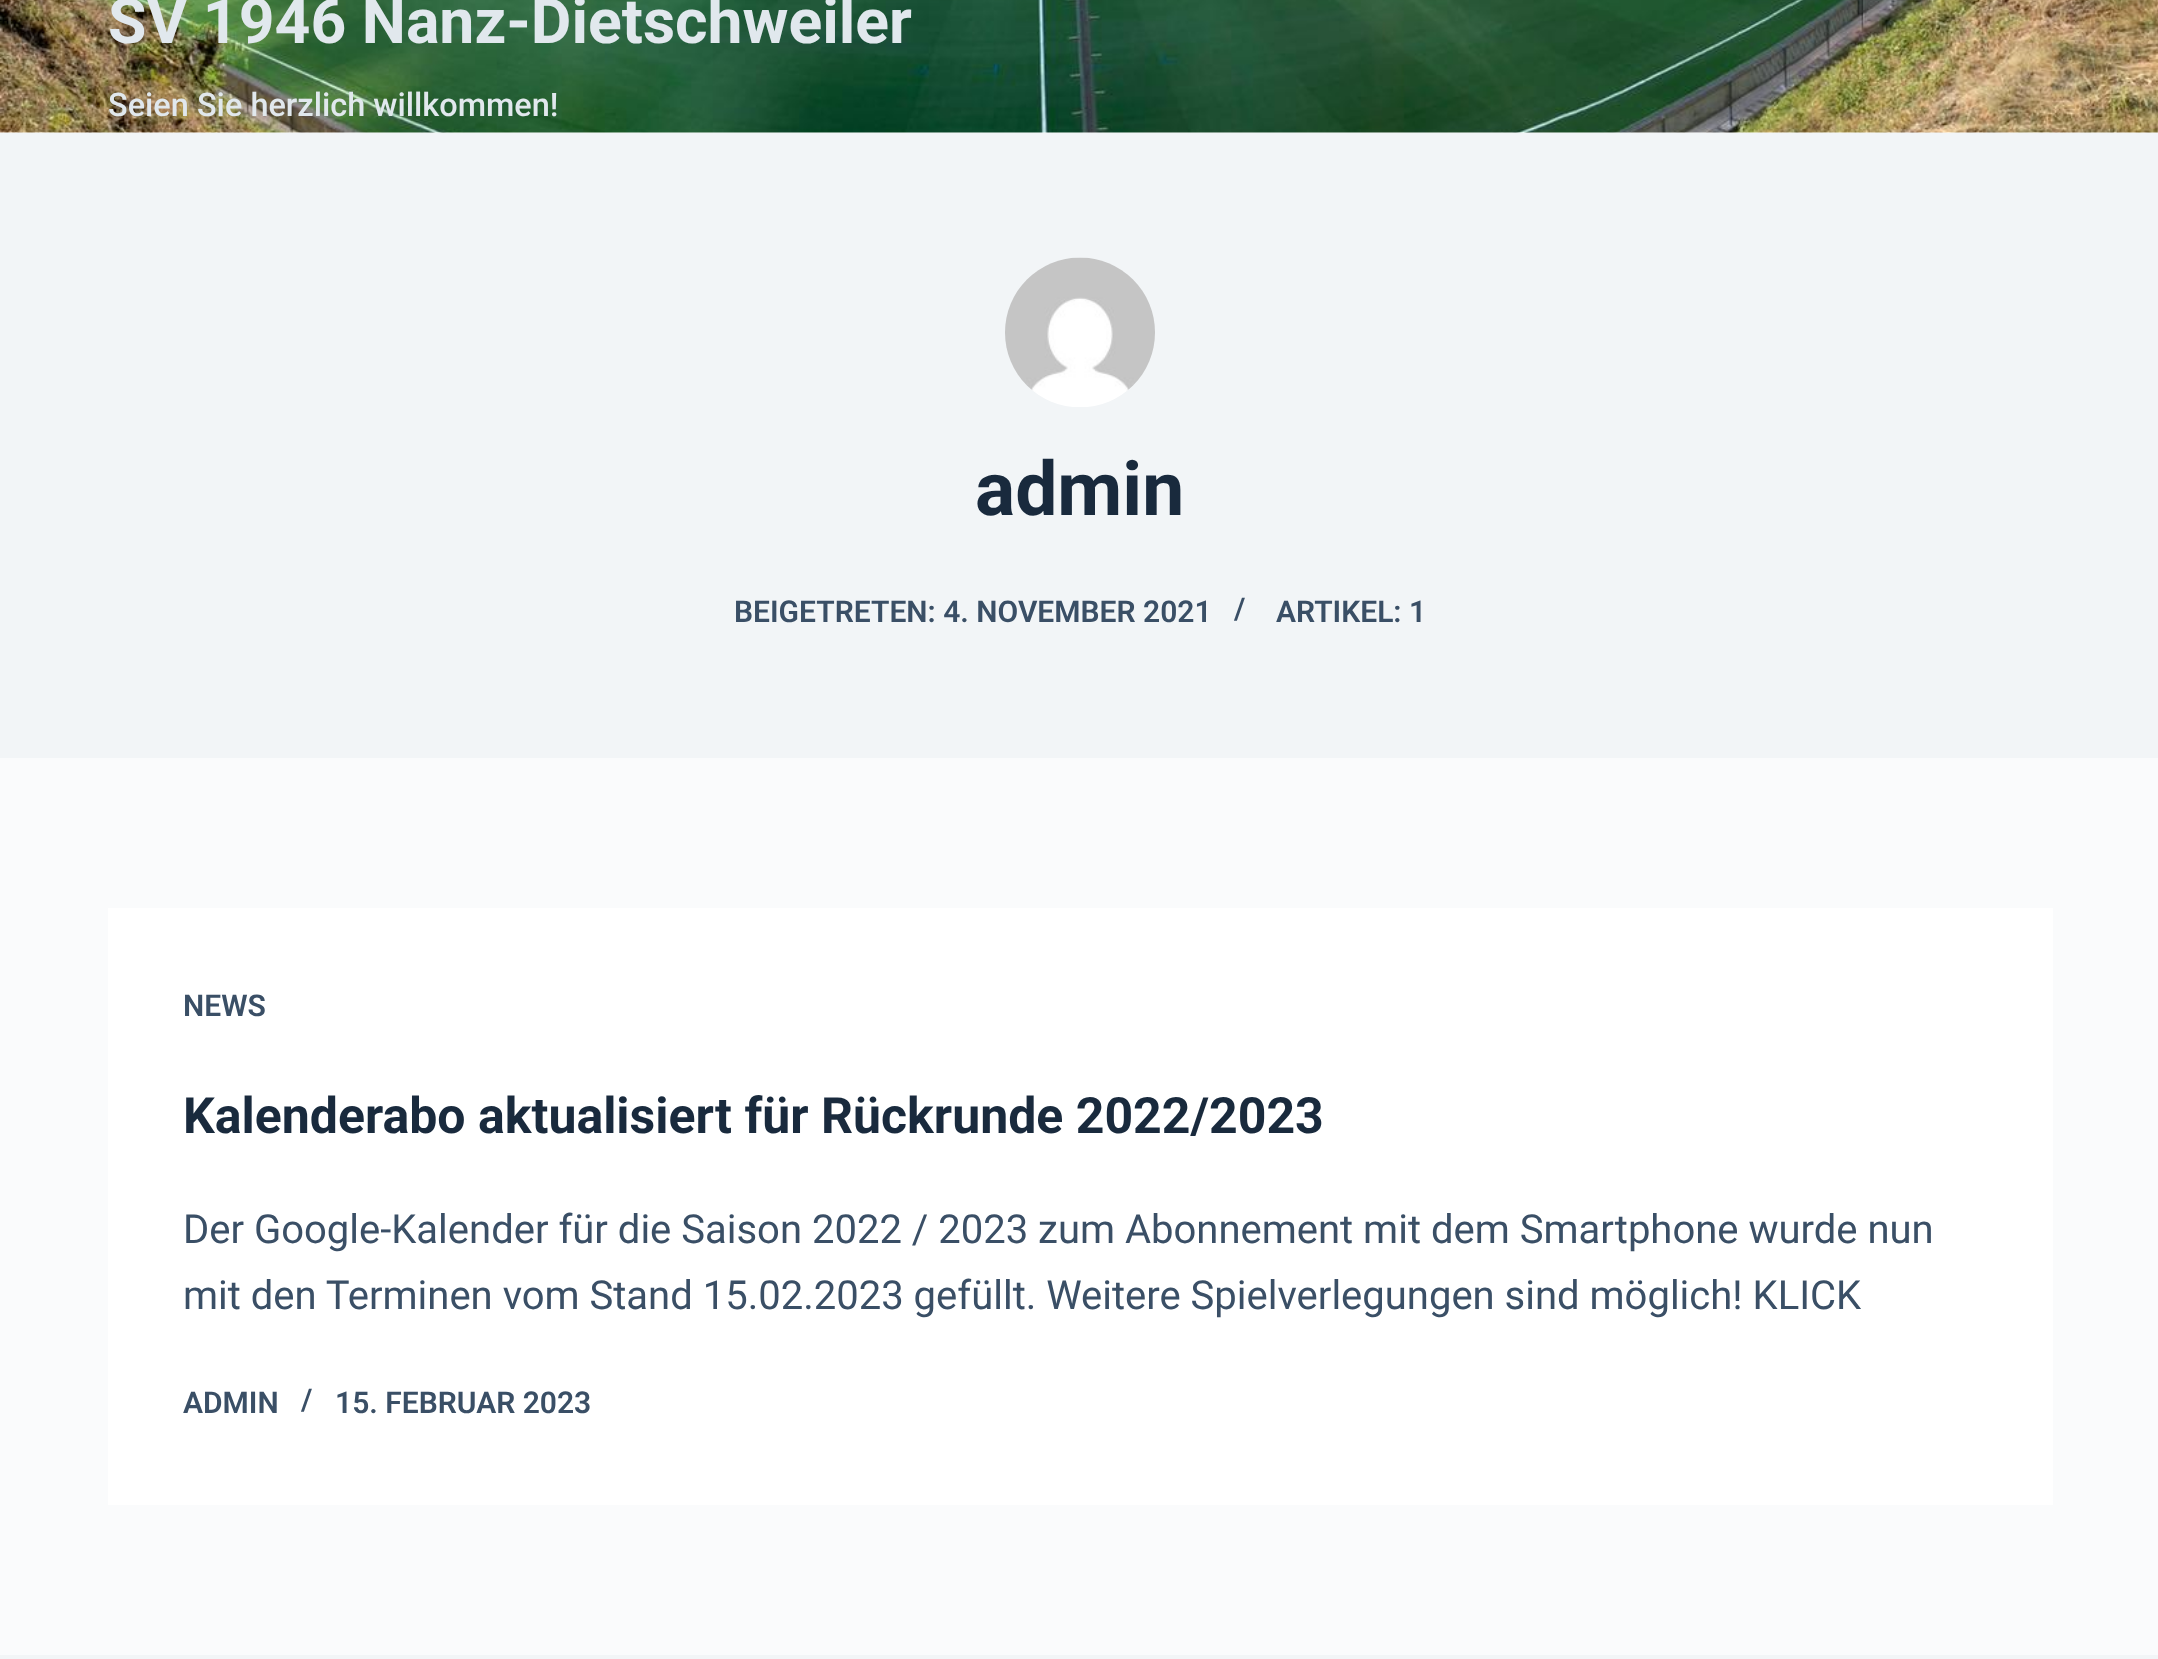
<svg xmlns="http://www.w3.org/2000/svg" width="2158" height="1659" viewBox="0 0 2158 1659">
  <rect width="100%" height="100%" fill="#fafbfc"/>
  <rect x="0" y="132" width="2158" height="1" fill="#ffffff"/>
  <image x="0" y="0" width="2158" height="133" href="img1.png"/>
  <text x="108" y="43" font-family="Roboto" font-size="62.5" font-weight="bold" fill="#e1e8ed">SV 1946 Nanz-Dietschweiler</text>
  <text x="108" y="116" font-family="Roboto" font-size="32.5" font-weight="500" fill="#e1e8ed">Seien Sie herzlich willkommen!</text>
  <rect x="0" y="133" width="2158" height="625" fill="#f2f5f7"/>
  <image x="1005" y="257" width="150" height="150" href="img2.png"/>
  <text x="975" y="515" font-family="Roboto" font-size="75" font-weight="bold" fill="#192a3d">admin</text>
  <text x="734" y="622" font-family="Roboto" font-size="30" font-weight="600" fill="#3a4f66">BEIGETRETEN: 4. NOVEMBER 2021</text>
  <text x="1234" y="619" font-family="Roboto" font-size="30" font-weight="600" fill="#3a4f66">/</text>
  <text x="1276" y="622" font-family="Roboto" font-size="30" font-weight="600" fill="#3a4f66">ARTIKEL: 1</text>
  <rect x="108" y="908" width="1945" height="597" fill="#ffffff"/>
  <text x="183" y="1016" font-family="Roboto" font-size="30" font-weight="600" fill="#3a4f66">NEWS</text>
  <text x="183" y="1133" font-family="Roboto" font-size="50" font-weight="bold" fill="#192a3d">Kalenderabo aktualisiert für Rückrunde 2022/2023</text>
  <text x="183" y="1243" font-family="Roboto" font-size="40" fill="#3a4f66">Der Google-Kalender für die Saison 2022 / 2023 zum Abonnement mit dem Smartphone wurde nun</text>
  <text x="183" y="1309" font-family="Roboto" font-size="40" fill="#3a4f66">mit den Terminen vom Stand 15.02.2023 gefüllt. Weitere Spielverlegungen sind möglich! KLICK</text>
  <text x="183" y="1413" font-family="Roboto" font-size="30" font-weight="600" fill="#3a4f66">ADMIN</text>
  <text x="301" y="1410" font-family="Roboto" font-size="30" font-weight="600" fill="#3a4f66">/</text>
  <text x="335" y="1413" font-family="Roboto" font-size="30" font-weight="600" fill="#3a4f66">15. FEBRUAR 2023</text>
  <rect x="0" y="1655" width="2158" height="4" fill="#f2f5f7"/>
</svg>
